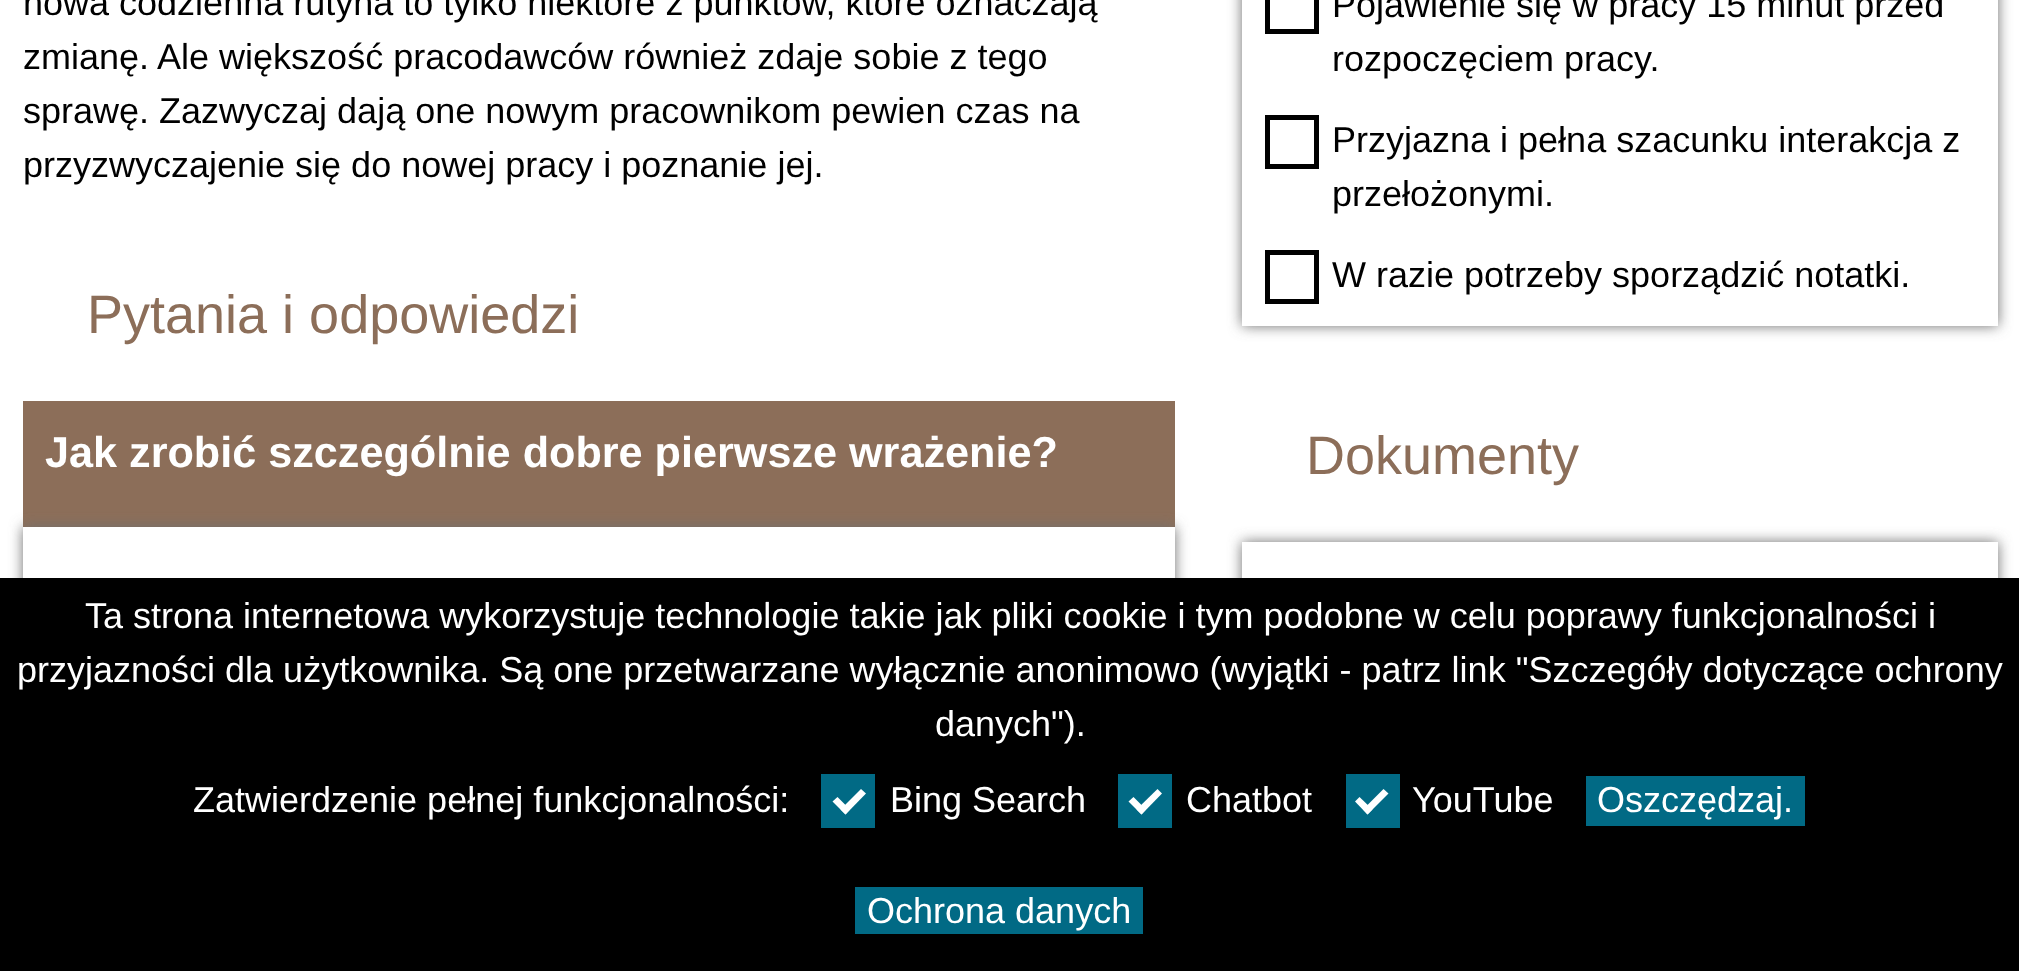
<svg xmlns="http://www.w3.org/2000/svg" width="2019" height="971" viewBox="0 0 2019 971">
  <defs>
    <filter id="blur1" x="-50%" y="-200%" width="200%" height="500%"><feGaussianBlur stdDeviation="7"/></filter>
    <clipPath id="clip1"><path d="M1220 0H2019V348H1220ZM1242-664H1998V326H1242Z" clip-rule="evenodd"/></clipPath>
  </defs>
  <rect width="100%" height="100%" fill="#ffffff"/>
  <text x="23" y="15" font-family="Liberation Sans" font-size="36" fill="#000000">nowa codzienna rutyna to tylko niektóre z punktów, które oznaczają</text>
  <text x="23" y="69" font-family="Liberation Sans" font-size="36" fill="#000000">zmianę. Ale większość pracodawców również zdaje sobie z tego</text>
  <text x="23" y="123" font-family="Liberation Sans" font-size="36" fill="#000000">sprawę. Zazwyczaj dają one nowym pracownikom pewien czas na</text>
  <text x="23" y="177" font-family="Liberation Sans" font-size="36" fill="#000000">przyzwyczajenie się do nowej pracy i poznanie jej.</text>
  <text x="87" y="333" font-family="Liberation Sans" font-size="54" fill="#8c6e59">Pytania i odpowiedzi</text>
  <rect x="23" y="401" width="1152" height="126" fill="#8c6e59"/>
  <text x="45" y="467" font-family="Liberation Sans" font-size="43.2" font-weight="bold" fill="#ffffff">Jak zrobić szczególnie dobre pierwsze wrażenie?</text>
  <rect x="23" y="527" width="1152" height="315" fill="#707070" filter="url(#blur1)"/>
  <rect x="23" y="527" width="1152" height="51" fill="#ffffff"/>
  <g clip-path="url(#clip1)">
    <rect x="1242" y="-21" width="756" height="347" fill="#707070" filter="url(#blur1)"/>
  </g>
  <rect x="1267.5" y="-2.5" width="49" height="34" fill="none" stroke="#000000" stroke-width="5"/>
  <text x="1332" y="17" font-family="Liberation Sans" font-size="36" fill="#000000">Pojawienie się w pracy 15 minut przed</text>
  <text x="1332" y="71" font-family="Liberation Sans" font-size="36" fill="#000000">rozpoczęciem pracy.</text>
  <rect x="1267.5" y="117.5" width="49" height="49" fill="none" stroke="#000000" stroke-width="5"/>
  <text x="1332" y="152" font-family="Liberation Sans" font-size="36" fill="#000000">Przyjazna i pełna szacunku interakcja z</text>
  <text x="1332" y="206" font-family="Liberation Sans" font-size="36" fill="#000000">przełożonymi.</text>
  <rect x="1267.5" y="252.5" width="49" height="49" fill="none" stroke="#000000" stroke-width="5"/>
  <text x="1332" y="287" font-family="Liberation Sans" font-size="36" fill="#000000">W razie potrzeby sporządzić notatki.</text>
  <text x="1306" y="474" font-family="Liberation Sans" font-size="54" fill="#8c6e59">Dokumenty</text>
  <rect x="1242" y="542" width="756" height="399" fill="#707070" filter="url(#blur1)"/>
  <rect x="1242" y="542" width="756" height="36" fill="#ffffff"/>
  <rect x="0" y="578" width="2019" height="393" fill="#000000"/>
  <text x="85" y="628" font-family="Liberation Sans" font-size="36" fill="#ffffff">Ta strona internetowa wykorzystuje technologie takie jak pliki cookie i tym podobne w celu poprawy funkcjonalności i</text>
  <text x="17" y="682" font-family="Liberation Sans" font-size="36" fill="#ffffff">przyjazności dla użytkownika. Są one przetwarzane wyłącznie anonimowo (wyjątki - patrz link "Szczegóły dotyczące ochrony</text>
  <text x="935" y="736" font-family="Liberation Sans" font-size="36" fill="#ffffff">danych").</text>
  <text x="193" y="812" font-family="Liberation Sans" font-size="36" fill="#ffffff">Zatwierdzenie pełnej funkcjonalności:</text>
  <rect x="821" y="774" width="54" height="54" fill="#016a85"/>
  <path d="M861 789L866 793.5L845.5 814.5L840.5 809.5Z" fill="#ffffff"/>
  <path d="M837.5 797L850 809.5L845.5 814.5L832.5 801.5Z" fill="#ffffff"/>
  <text x="890" y="812" font-family="Liberation Sans" font-size="36" fill="#ffffff">Bing Search</text>
  <rect x="1118" y="774" width="54" height="54" fill="#016a85"/>
  <path d="M1157.5 789L1162 793.5L1141.5 814.5L1136.5 809.5Z" fill="#ffffff"/>
  <path d="M1133.5 797L1146 809.5L1141.5 814.5L1128.5 801.5Z" fill="#ffffff"/>
  <text x="1186" y="812" font-family="Liberation Sans" font-size="36" fill="#ffffff">Chatbot</text>
  <rect x="1346" y="774" width="54" height="54" fill="#016a85"/>
  <path d="M1383.5 789L1388.5 793.5L1367.5 814.5L1363 809.5Z" fill="#ffffff"/>
  <path d="M1359.5 797L1372.5 809.5L1367.5 814.5L1355 801.5Z" fill="#ffffff"/>
  <text x="1412" y="812" font-family="Liberation Sans" font-size="36" fill="#ffffff">YouTube</text>
  <rect x="1586" y="776" width="219" height="50" fill="#016a85"/>
  <text x="1597" y="812" font-family="Liberation Sans" font-size="36" fill="#ffffff">Oszczędzaj.</text>
  <rect x="855" y="887" width="288" height="47" fill="#016a85"/>
  <text x="867" y="923" font-family="Liberation Sans" font-size="36" fill="#ffffff">Ochrona danych</text>
</svg>
